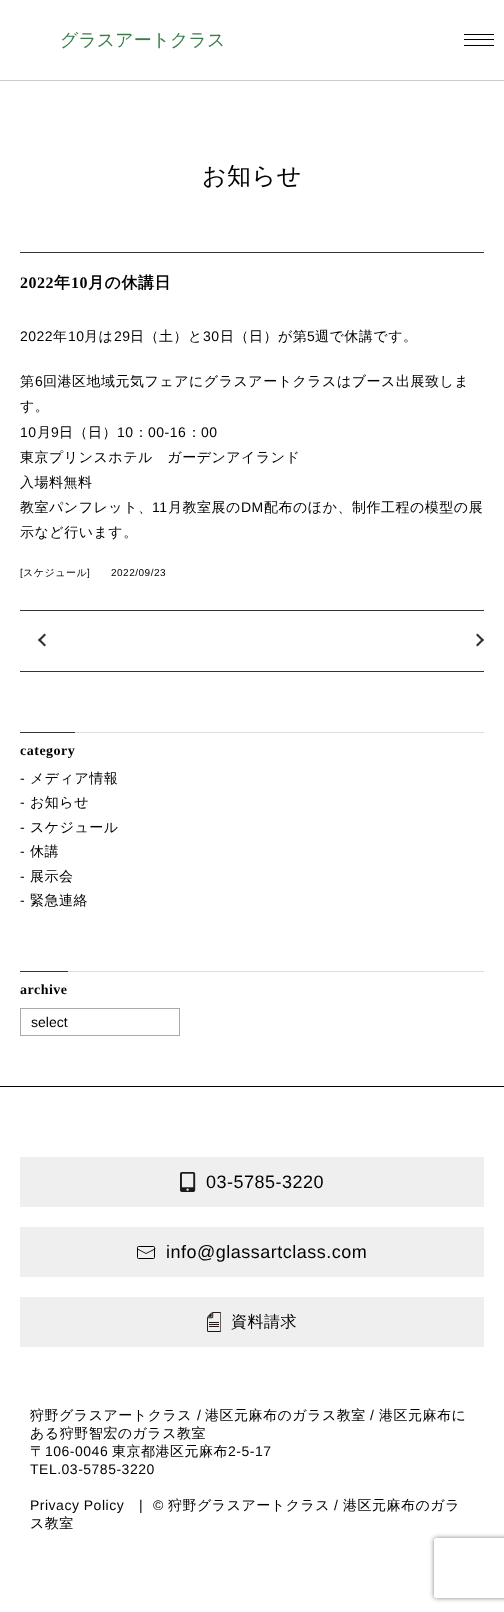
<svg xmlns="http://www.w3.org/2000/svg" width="504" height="1612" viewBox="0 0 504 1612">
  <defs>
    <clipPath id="clip1"><path d="M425 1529H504V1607H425ZM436 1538H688C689 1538 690 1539 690 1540V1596C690 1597 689 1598 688 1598H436C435 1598 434 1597 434 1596V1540C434 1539 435 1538 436 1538Z" clip-rule="evenodd"/></clipPath>
    <filter id="blur1" x="-50%" y="-200%" width="200%" height="500%"><feGaussianBlur stdDeviation="2.5"/></filter>
  </defs>
  <rect width="100%" height="100%" fill="#ffffff"/>
  <rect x="0" y="80" width="504" height="1" fill="#cccccc"/>
  <text x="60" y="46" font-family="WenQuanYi Zen Hei" font-size="18" font-weight="500" fill="#3a7e4a">グラスアートクラス</text>
  <rect x="464" y="34" width="30" height="1" fill="#000000"/>
  <rect x="464" y="39" width="30" height="1" fill="#000000"/>
  <rect x="464" y="45" width="30" height="1" fill="#000000"/>
  <text x="202" y="184" font-family="WenQuanYi Zen Hei" font-size="24" font-weight="500" letter-spacing="0.5" fill="#000000">お知らせ</text>
  <rect x="20" y="252" width="464" height="1" fill="#333333"/>
  <text x="20" y="288" font-family="Liberation Serif" font-size="16" font-weight="bold" letter-spacing="0.5" fill="#000000">2022</text>
  <text x="54" y="288" font-family="WenQuanYi Zen Hei" font-size="16" font-weight="bold" letter-spacing="0.5" fill="#000000">年</text>
  <text x="71" y="288" font-family="Liberation Serif" font-size="16" font-weight="bold" letter-spacing="0.5" fill="#000000">10</text>
  <text x="88" y="288" font-family="WenQuanYi Zen Hei" font-size="16" font-weight="bold" letter-spacing="0.5" fill="#000000">月の休講日</text>
  <text x="20" y="341" font-family="Liberation Sans" font-size="14" letter-spacing="0.5" fill="#000000">2022</text>
  <text x="53" y="341" font-family="WenQuanYi Zen Hei" font-size="14" font-weight="500" letter-spacing="0.5" fill="#000000">年</text>
  <text x="68" y="341" font-family="Liberation Sans" font-size="14" letter-spacing="0.5" fill="#000000">10</text>
  <text x="84" y="341" font-family="WenQuanYi Zen Hei" font-size="14" font-weight="500" letter-spacing="0.5" fill="#000000">月は</text>
  <text x="114" y="341" font-family="Liberation Sans" font-size="14" letter-spacing="0.5" fill="#000000">29</text>
  <text x="130" y="341" font-family="WenQuanYi Zen Hei" font-size="14" font-weight="500" letter-spacing="0.5" fill="#000000">日（土）と</text>
  <text x="203" y="341" font-family="Liberation Sans" font-size="14" letter-spacing="0.5" fill="#000000">30</text>
  <text x="220" y="341" font-family="WenQuanYi Zen Hei" font-size="14" font-weight="500" letter-spacing="0.5" fill="#000000">日（日）が第</text>
  <text x="307" y="341" font-family="Liberation Sans" font-size="14" letter-spacing="0.5" fill="#000000">5</text>
  <text x="315" y="341" font-family="WenQuanYi Zen Hei" font-size="14" font-weight="500" letter-spacing="0.5" fill="#000000">週で休講です。</text>
  <text x="20" y="386" font-family="WenQuanYi Zen Hei" font-size="14" font-weight="500" letter-spacing="0.5" fill="#000000">第</text>
  <text x="35" y="386" font-family="Liberation Sans" font-size="14" letter-spacing="0.5" fill="#000000">6</text>
  <text x="43" y="386" font-family="WenQuanYi Zen Hei" font-size="14" font-weight="500" letter-spacing="0.5" fill="#000000">回港区地域元気フェアにグラスアートクラスはブース出展致しま</text>
  <text x="20" y="411" font-family="WenQuanYi Zen Hei" font-size="14" font-weight="500" letter-spacing="0.5" fill="#000000">す。</text>
  <text x="20" y="437" font-family="Liberation Sans" font-size="14" letter-spacing="0.5" fill="#000000">10</text>
  <text x="37" y="437" font-family="WenQuanYi Zen Hei" font-size="14" font-weight="500" letter-spacing="0.5" fill="#000000">月</text>
  <text x="51" y="437" font-family="Liberation Sans" font-size="14" letter-spacing="0.5" fill="#000000">9</text>
  <text x="59" y="437" font-family="WenQuanYi Zen Hei" font-size="14" font-weight="500" letter-spacing="0.5" fill="#000000">日（日）</text>
  <text x="117" y="437" font-family="Liberation Sans" font-size="14" letter-spacing="0.5" fill="#000000">10</text>
  <text x="134" y="437" font-family="WenQuanYi Zen Hei" font-size="14" font-weight="500" letter-spacing="0.5" fill="#000000">：</text>
  <text x="148" y="437" font-family="Liberation Sans" font-size="14" letter-spacing="0.5" fill="#000000">00-16</text>
  <text x="187" y="437" font-family="WenQuanYi Zen Hei" font-size="14" font-weight="500" letter-spacing="0.5" fill="#000000">：</text>
  <text x="201" y="437" font-family="Liberation Sans" font-size="14" letter-spacing="0.5" fill="#000000">00</text>
  <text x="20" y="462" font-family="WenQuanYi Zen Hei" font-size="14" font-weight="500" letter-spacing="0.5" fill="#000000">東京プリンスホテル　ガーデンアイランド</text>
  <text x="20" y="487" font-family="WenQuanYi Zen Hei" font-size="14" font-weight="500" letter-spacing="0.5" fill="#000000">入場料無料</text>
  <text x="20" y="512" font-family="WenQuanYi Zen Hei" font-size="14" font-weight="500" letter-spacing="0.5" fill="#000000">教室パンフレット、</text>
  <text x="152" y="512" font-family="Liberation Sans" font-size="14" letter-spacing="0.5" fill="#000000">11</text>
  <text x="168" y="512" font-family="WenQuanYi Zen Hei" font-size="14" font-weight="500" letter-spacing="0.5" fill="#000000">月教室展の</text>
  <text x="241" y="512" font-family="Liberation Sans" font-size="14" letter-spacing="0.5" fill="#000000">DM</text>
  <text x="264" y="512" font-family="WenQuanYi Zen Hei" font-size="14" font-weight="500" letter-spacing="0.5" fill="#000000">配布のほか、制作工程の模型の展</text>
  <text x="20" y="537" font-family="WenQuanYi Zen Hei" font-size="14" font-weight="500" letter-spacing="0.5" fill="#000000">示など行います。</text>
  <text x="20" y="576" font-family="Liberation Sans" font-size="10" letter-spacing="0.5" fill="#000000">[</text>
  <text x="23" y="576" font-family="WenQuanYi Zen Hei" font-size="10" font-weight="500" letter-spacing="0.5" fill="#000000">スケジュール</text>
  <text x="87" y="576" font-family="Liberation Sans" font-size="10" letter-spacing="0.5" fill="#000000">]</text>
  <text x="111" y="576" font-family="Liberation Sans" font-size="10" letter-spacing="0.5" fill="#000000">2022/09/23</text>
  <rect x="20" y="610" width="464" height="1" fill="#333333"/>
  <rect x="20" y="671" width="464" height="1" fill="#333333"/>
  <path d="M38 640L44.5 633.5L46 635L39.5 641.5Z" fill="#333333"/>
  <path d="M38 640L39.5 638.5L46 645L44.5 646.5Z" fill="#333333"/>
  <path d="M484 640L477.5 646.5L476 645L482.5 638.5Z" fill="#333333"/>
  <path d="M484 640L482.5 641.5L476 635L477.5 633.5Z" fill="#333333"/>
  <rect x="75" y="732" width="409" height="1" fill="#dddddd"/>
  <rect x="20" y="732" width="55" height="1" fill="#333333"/>
  <text x="20" y="755" font-family="Liberation Serif" font-size="14" font-weight="bold" letter-spacing="0.5" fill="#000000">category</text>
  <text x="20" y="783" font-family="Liberation Sans" font-size="14" letter-spacing="0.5" fill="#000000">-</text>
  <text x="30" y="783" font-family="WenQuanYi Zen Hei" font-size="14" font-weight="500" letter-spacing="0.5" fill="#000000">メディア情報</text>
  <text x="20" y="807" font-family="Liberation Sans" font-size="14" letter-spacing="0.5" fill="#000000">-</text>
  <text x="30" y="807" font-family="WenQuanYi Zen Hei" font-size="14" font-weight="500" letter-spacing="0.5" fill="#000000">お知らせ</text>
  <text x="20" y="832" font-family="Liberation Sans" font-size="14" letter-spacing="0.5" fill="#000000">-</text>
  <text x="30" y="832" font-family="WenQuanYi Zen Hei" font-size="14" font-weight="500" letter-spacing="0.5" fill="#000000">スケジュール</text>
  <text x="20" y="856" font-family="Liberation Sans" font-size="14" letter-spacing="0.5" fill="#000000">-</text>
  <text x="30" y="856" font-family="WenQuanYi Zen Hei" font-size="14" font-weight="500" letter-spacing="0.5" fill="#000000">休講</text>
  <text x="20" y="881" font-family="Liberation Sans" font-size="14" letter-spacing="0.5" fill="#000000">-</text>
  <text x="30" y="881" font-family="WenQuanYi Zen Hei" font-size="14" font-weight="500" letter-spacing="0.5" fill="#000000">展示会</text>
  <text x="20" y="905" font-family="Liberation Sans" font-size="14" letter-spacing="0.5" fill="#000000">-</text>
  <text x="30" y="905" font-family="WenQuanYi Zen Hei" font-size="14" font-weight="500" letter-spacing="0.5" fill="#000000">緊急連絡</text>
  <rect x="68" y="971" width="416" height="1" fill="#dddddd"/>
  <rect x="20" y="971" width="48" height="1" fill="#333333"/>
  <text x="20" y="994" font-family="Liberation Serif" font-size="14" font-weight="bold" letter-spacing="0.5" fill="#000000">archive</text>
  <rect x="20.5" y="1008.5" width="159" height="27" fill="none" stroke="#aaaaaa"/>
  <text x="31" y="1027" font-family="Liberation Sans" font-size="14" fill="#000000">select</text>
  <rect x="0" y="1086" width="504" height="1" fill="#000000"/>
  <rect x="20" y="1157" width="464" height="50" fill="#efefef"/>
  <image x="180" y="1172" width="16" height="20" href="img1.png"/>
  <text x="206" y="1188" font-family="Liberation Sans" font-size="18" letter-spacing="0.5" fill="#000000">03-5785-3220</text>
  <rect x="20" y="1227" width="464" height="50" fill="#efefef"/>
  <rect x="137.5" y="1246.5" width="17" height="12" rx="1" fill="none" stroke="#000000"/>
  <path d="M155 1249L146 1253.5L137.5 1249" fill="none" stroke="#000000" stroke-width="0.9" stroke-linecap="round" stroke-linejoin="round"/>
  <text x="166" y="1258" font-family="Liberation Sans" font-size="18" letter-spacing="0.5" fill="#000000">info@glassartclass.com</text>
  <rect x="20" y="1297" width="464" height="50" fill="#efefef"/>
  <image x="207" y="1312" width="14" height="20" href="img2.png"/>
  <text x="231" y="1327" font-family="WenQuanYi Zen Hei" font-size="16" font-weight="500" letter-spacing="0.5" fill="#000000">資料請求</text>
  <text x="30" y="1420" font-family="WenQuanYi Zen Hei" font-size="14" font-weight="500" letter-spacing="0.5" fill="#000000">狩野グラスアートクラス</text>
  <text x="197" y="1420" font-family="Liberation Sans" font-size="14" letter-spacing="0.5" fill="#000000">/</text>
  <text x="205" y="1420" font-family="WenQuanYi Zen Hei" font-size="14" font-weight="500" letter-spacing="0.5" fill="#000000">港区元麻布のガラス教室</text>
  <text x="370" y="1420" font-family="Liberation Sans" font-size="14" letter-spacing="0.5" fill="#000000">/</text>
  <text x="379" y="1420" font-family="WenQuanYi Zen Hei" font-size="14" font-weight="500" letter-spacing="0.5" fill="#000000">港区元麻布に</text>
  <text x="30" y="1438" font-family="WenQuanYi Zen Hei" font-size="14" font-weight="500" letter-spacing="0.5" fill="#000000">ある狩野智宏のガラス教室</text>
  <text x="30" y="1456" font-family="WenQuanYi Zen Hei" font-size="14" font-weight="500" letter-spacing="0.5" fill="#000000">〒</text>
  <text x="45" y="1456" font-family="Liberation Sans" font-size="14" letter-spacing="0.5" fill="#000000">106-0046</text>
  <text x="112" y="1456" font-family="WenQuanYi Zen Hei" font-size="14" font-weight="500" letter-spacing="0.5" fill="#000000">東京都港区元麻布</text>
  <text x="228" y="1456" font-family="Liberation Sans" font-size="14" letter-spacing="0.5" fill="#000000">2-5-17</text>
  <text x="30" y="1474" font-family="Liberation Sans" font-size="14" letter-spacing="0.5" fill="#000000">TEL.03-5785-3220</text>
  <text x="139" y="1510" font-family="Liberation Sans" font-size="14" letter-spacing="0.5" fill="#000000">|</text>
  <text x="153" y="1510" font-family="Liberation Sans" font-size="14" letter-spacing="0.5" fill="#000000">©</text>
  <text x="168" y="1510" font-family="WenQuanYi Zen Hei" font-size="14" font-weight="500" letter-spacing="0.5" fill="#000000">狩野グラスアートクラス</text>
  <text x="334" y="1510" font-family="Liberation Sans" font-size="14" letter-spacing="0.5" fill="#000000">/</text>
  <text x="343" y="1510" font-family="WenQuanYi Zen Hei" font-size="14" font-weight="500" letter-spacing="0.5" fill="#000000">港区元麻布のガラ</text>
  <text x="30" y="1528" font-family="WenQuanYi Zen Hei" font-size="14" font-weight="500" letter-spacing="0.5" fill="#000000">ス教室</text>
  <text x="30" y="1510" font-family="Liberation Sans" font-size="14" letter-spacing="0.5" fill="#000000">Privacy Policy</text>
  <g clip-path="url(#clip1)">
    <rect x="434" y="1538" width="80" height="60" rx="2" fill="#808080" filter="url(#blur1)"/>
  </g>
</svg>
